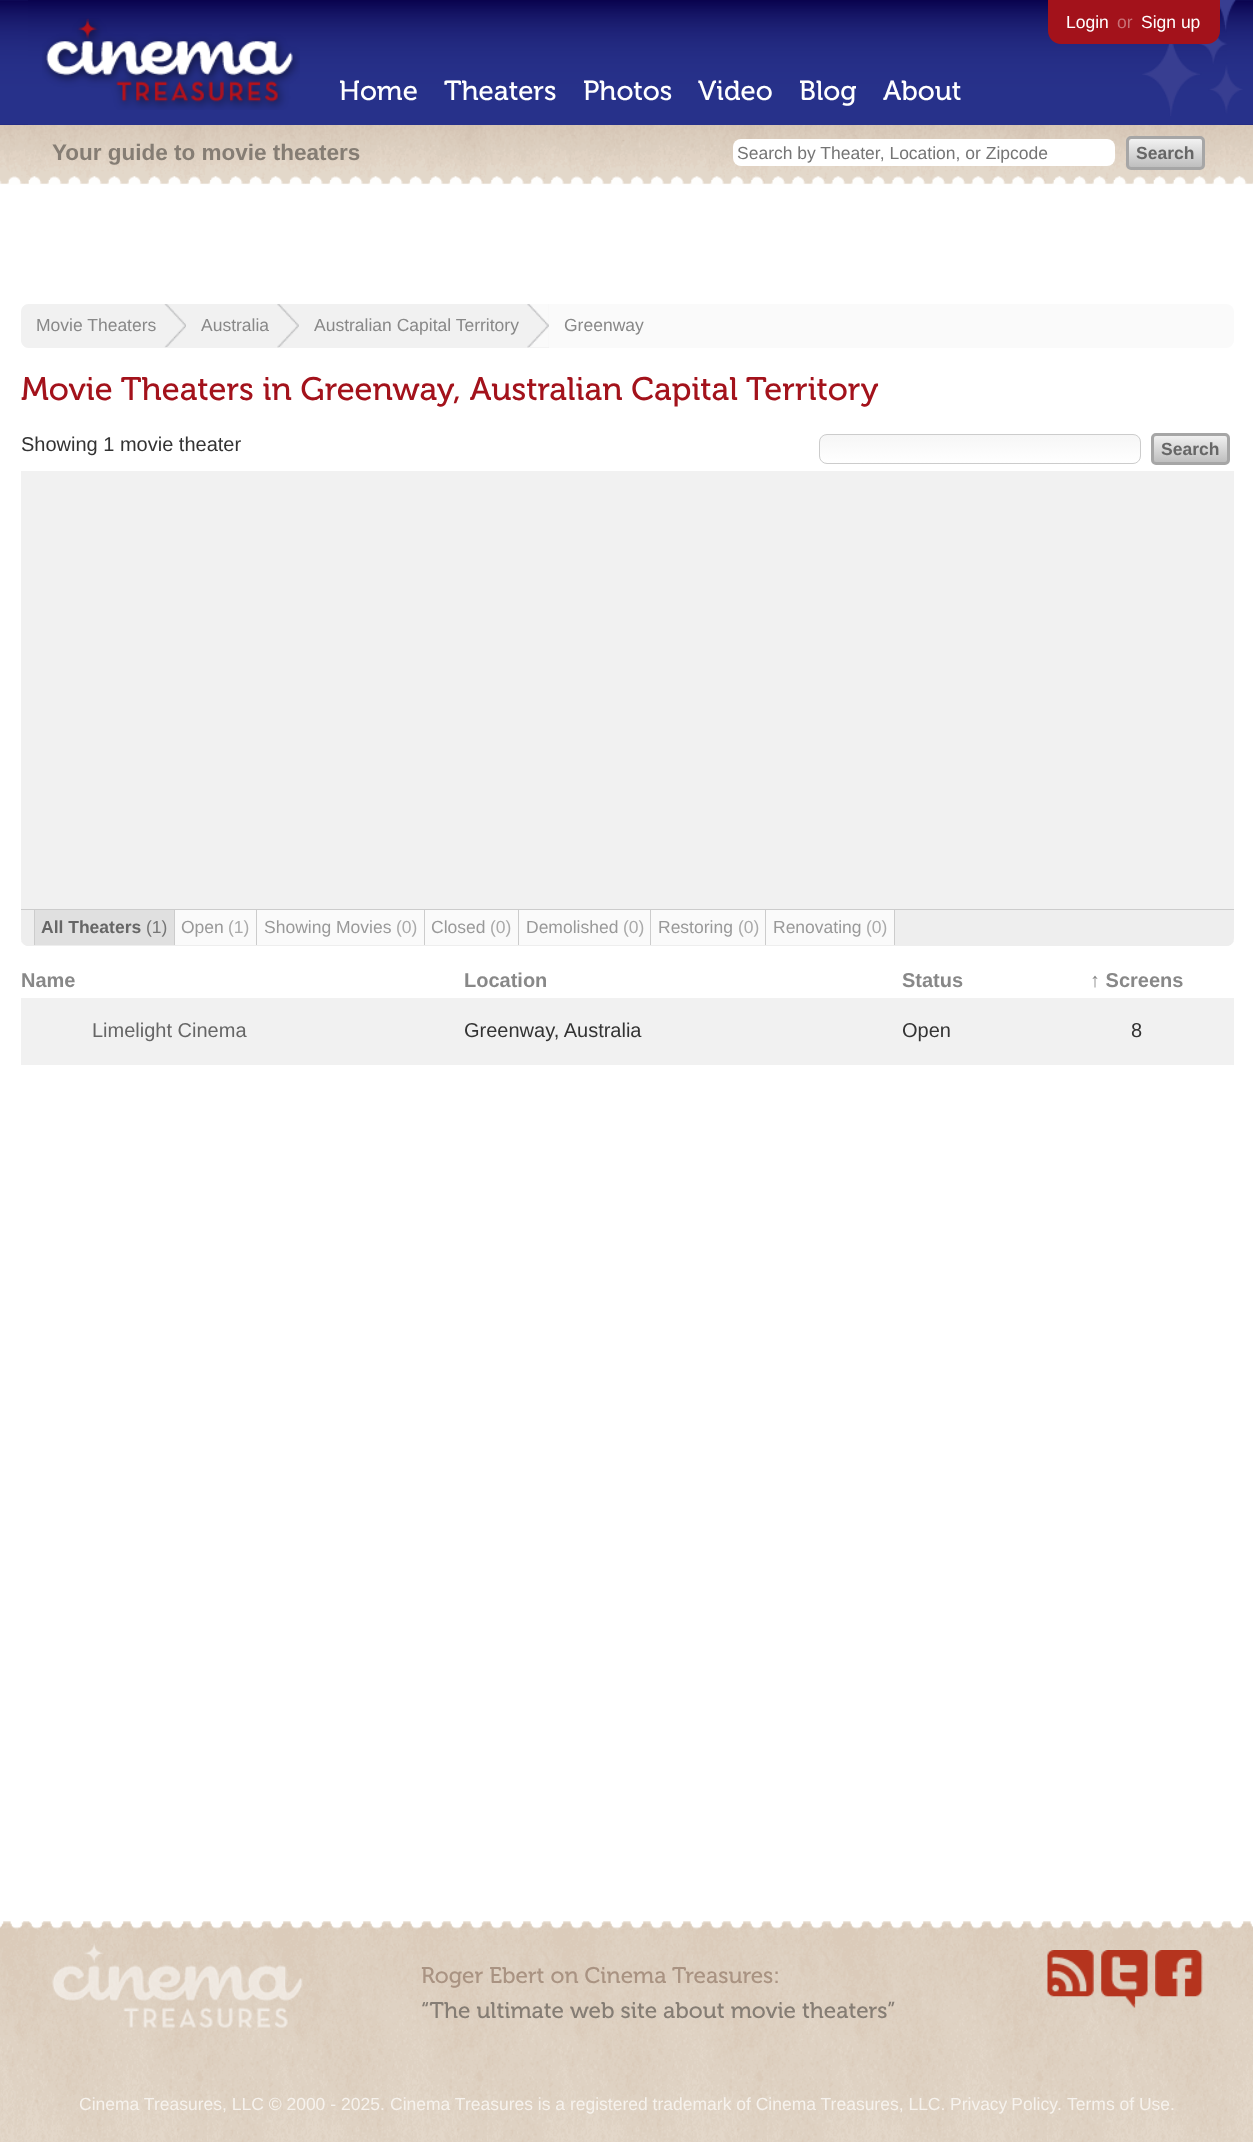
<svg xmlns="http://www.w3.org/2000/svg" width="1253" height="2142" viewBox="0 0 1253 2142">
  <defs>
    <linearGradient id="g1" gradientUnits="userSpaceOnUse" x1="1166" y1="139" x2="1166" y2="168"><stop offset="0" stop-color="#f2f2f2"/><stop offset="1" stop-color="#bdbdbd"/></linearGradient>
    <clipPath id="clip1"><rect x="819" y="434" width="322" height="30" rx="8"/></clipPath>
    <linearGradient id="g2" gradientUnits="userSpaceOnUse" x1="980" y1="435" x2="980" y2="463"><stop offset="0" stop-color="#f6f6f6"/><stop offset="1" stop-color="#ffffff"/></linearGradient>
    <linearGradient id="g3" gradientUnits="userSpaceOnUse" x1="1191" y1="435" x2="1191" y2="463"><stop offset="0" stop-color="#f2f2f2"/><stop offset="1" stop-color="#bdbdbd"/></linearGradient>
  </defs>
  <rect width="100%" height="100%" fill="#ffffff"/>
  <image x="0" y="0" width="1253" height="125" href="img1.png"/>
  <image x="28" y="0" width="1199" height="125" href="img3.png"/>
  <image x="1142" y="0" width="101" height="116" href="img2.png"/>
  <image x="42" y="18" width="258" height="92" href="img4.png"/>
  <text x="339" y="100" font-family="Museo" font-size="27.5" fill="#ffffff">Home</text>
  <text x="444" y="100" font-family="Museo" font-size="27.5" fill="#ffffff">Theaters</text>
  <text x="583" y="100" font-family="Museo" font-size="27.5" fill="#ffffff">Photos</text>
  <text x="698" y="100" font-family="Museo" font-size="27.5" fill="#ffffff">Video</text>
  <text x="799" y="100" font-family="Museo" font-size="27.5" fill="#ffffff">Blog</text>
  <text x="883" y="100" font-family="Museo" font-size="27.5" fill="#ffffff">About</text>
  <path d="M1048 0H1220V31C1220 38 1214 44 1207 44H1061C1054 44 1048 38 1048 31Z" fill="#a3121b"/>
  <text x="1066" y="28" font-family="Liberation Sans" font-size="17.5" fill="#ffffff">Login</text>
  <text x="1117" y="28" font-family="Liberation Sans" font-size="17.5" fill="#c87176">or</text>
  <text x="1141" y="28" font-family="Liberation Sans" font-size="17.5" fill="#ffffff">Sign up</text>
  <image x="0" y="125" width="1253" height="60" href="img5.png"/>
  <text x="52" y="160" font-family="Liberation Sans" font-size="22.5" font-weight="bold" fill="#857d74">Your guide to movie theaters</text>
  <rect x="733" y="139" width="382" height="27" rx="8" fill="#ffffff"/>
  <text x="737" y="159" font-family="Liberation Sans" font-size="17.5" fill="#757575">Search by Theater, Location, or Zipcode</text>
  <rect x="1129" y="139" width="74" height="29" rx="2.5" fill="url(#g1)"/>
  <rect x="1127.5" y="137.5" width="76" height="31" rx="3.5" fill="none" stroke="#a6a6a6" stroke-width="3"/>
  <text x="1136" y="159" font-family="Liberation Sans" font-size="17.5" font-weight="bold" fill="#666666">Search</text>
  <rect x="21" y="304" width="1213" height="44" rx="8" fill="#fafafa"/>
  <path d="M29 304H186V348H29C24.5 348 21 344.5 21 340V312C21 307.5 24.5 304 29 304Z" fill="#f1f1f1"/>
  <image x="164" y="304" width="22" height="44" href="img6.png"/>
  <text x="36" y="331" font-family="Liberation Sans" font-size="17.5" fill="#888888">Movie Theaters</text>
  <rect x="186" y="304" width="363" height="44" fill="#f1f1f1"/>
  <image x="277" y="304" width="22" height="44" href="img7.png"/>
  <text x="201" y="331" font-family="Liberation Sans" font-size="17.5" fill="#888888">Australia</text>
  <image x="527" y="304" width="22" height="44" href="img8.png"/>
  <text x="314" y="331" font-family="Liberation Sans" font-size="17.5" fill="#888888">Australian Capital Territory</text>
  <text x="564" y="331" font-family="Liberation Sans" font-size="17.5" fill="#888888">Greenway</text>
  <text x="21" y="400" font-family="Museo" font-size="32.5" fill="#a3121b">Movie Theaters in Greenway, Australian Capital Territory</text>
  <text x="21" y="451" font-family="Liberation Sans" font-size="20" fill="#333333">Showing 1 movie theater</text>
  <g clip-path="url(#clip1)">
    <rect x="819" y="435" width="322" height="28" fill="url(#g2)"/>
  </g>
  <rect x="819.5" y="434.5" width="321" height="29" rx="7.5" fill="none" stroke="#cccccc"/>
  <rect x="1154" y="435" width="74" height="28" rx="2.5" fill="url(#g3)"/>
  <rect x="1152.5" y="434.5" width="76" height="29" rx="3.5" fill="none" stroke="#a6a6a6" stroke-width="3"/>
  <text x="1161" y="455" font-family="Liberation Sans" font-size="17.5" font-weight="bold" fill="#666666">Search</text>
  <rect x="21" y="471" width="1213" height="438" fill="#f1f1f1"/>
  <path d="M21 909H1234V938C1234 942.5 1230.5 946 1226 946H29C24.5 946 21 942.5 21 938Z" fill="#eeeeee"/>
  <rect x="21" y="909" width="1213" height="1" fill="#cccccc"/>
  <path d="M1234 941C1233 944 1229 946 1226 946H29C26 946 22 944 21 941V940C22 943 26 945 29 945H1226C1229 945 1233 943 1234 940Z" fill="#eeeeee"/>
  <rect x="35" y="910" width="139" height="35" fill="#e0e0e0"/>
  <rect x="174" y="910" width="1" height="35" fill="#cccccc"/>
  <rect x="34" y="910" width="1" height="35" fill="#cccccc"/>
  <text x="41" y="933" font-family="Liberation Sans" font-size="17.5" font-weight="bold" fill="#666666">All Theaters</text>
  <text x="146" y="933" font-family="Liberation Sans" font-size="17.5" fill="#757575">(1)</text>
  <rect x="175" y="910" width="249" height="35" fill="#fafafa"/>
  <rect x="256" y="910" width="1" height="35" fill="#cccccc"/>
  <text x="181" y="933" font-family="Liberation Sans" font-size="17.5" fill="#999999">Open</text>
  <text x="228" y="933" font-family="Liberation Sans" font-size="17.5" fill="#aaaaaa">(1)</text>
  <rect x="424" y="910" width="1" height="35" fill="#cccccc"/>
  <text x="264" y="933" font-family="Liberation Sans" font-size="17.5" fill="#999999">Showing Movies</text>
  <text x="396" y="933" font-family="Liberation Sans" font-size="17.5" fill="#aaaaaa">(0)</text>
  <rect x="425" y="910" width="93" height="35" fill="#fafafa"/>
  <rect x="518" y="910" width="1" height="35" fill="#cccccc"/>
  <text x="431" y="933" font-family="Liberation Sans" font-size="17.5" fill="#999999">Closed</text>
  <text x="490" y="933" font-family="Liberation Sans" font-size="17.5" fill="#aaaaaa">(0)</text>
  <rect x="519" y="910" width="131" height="35" fill="#fafafa"/>
  <rect x="650" y="910" width="1" height="35" fill="#cccccc"/>
  <text x="526" y="933" font-family="Liberation Sans" font-size="17.5" fill="#999999">Demolished</text>
  <text x="623" y="933" font-family="Liberation Sans" font-size="17.5" fill="#aaaaaa">(0)</text>
  <rect x="651" y="910" width="114" height="35" fill="#fafafa"/>
  <rect x="765" y="910" width="1" height="35" fill="#cccccc"/>
  <text x="658" y="933" font-family="Liberation Sans" font-size="17.5" fill="#999999">Restoring</text>
  <text x="738" y="933" font-family="Liberation Sans" font-size="17.5" fill="#aaaaaa">(0)</text>
  <rect x="766" y="910" width="128" height="35" fill="#fafafa"/>
  <rect x="894" y="910" width="1" height="35" fill="#cccccc"/>
  <text x="773" y="933" font-family="Liberation Sans" font-size="17.5" fill="#999999">Renovating</text>
  <text x="866" y="933" font-family="Liberation Sans" font-size="17.5" fill="#aaaaaa">(0)</text>
  <text x="21" y="987" font-family="Liberation Sans" font-size="20" font-weight="bold" fill="#888888">Name</text>
  <text x="464" y="987" font-family="Liberation Sans" font-size="20" font-weight="bold" fill="#888888">Location</text>
  <text x="902" y="987" font-family="Liberation Sans" font-size="20" font-weight="bold" fill="#888888">Status</text>
  <text x="1090" y="987" font-family="Liberation Sans" font-size="20" font-weight="bold" fill="#888888">↑ Screens</text>
  <rect x="21" y="998" width="1213" height="67" fill="#f1f1f1"/>
  <text x="92" y="1037" font-family="Liberation Sans" font-size="20" fill="#666666">Limelight Cinema</text>
  <text x="464" y="1037" font-family="Liberation Sans" font-size="20" fill="#333333">Greenway, Australia</text>
  <text x="902" y="1037" font-family="Liberation Sans" font-size="20" fill="#333333">Open</text>
  <text x="1131" y="1037" font-family="Liberation Sans" font-size="20" fill="#333333">8</text>
  <image x="0" y="1921" width="1253" height="221" href="img9.png"/>
  <image x="52" y="1943" width="251" height="85" href="img10.png"/>
  <text x="421" y="1983" font-family="Museo" font-size="22.5" fill="#a99382">Roger Ebert on Cinema Treasures:</text>
  <text x="421" y="2018" font-family="Museo" font-size="22.5" fill="#857d74">“The ultimate web site about movie theaters”</text>
  <image x="1047" y="1950" width="47" height="47" href="img11.png"/>
  <image x="1101" y="1950" width="47" height="58" href="img12.png"/>
  <image x="1155" y="1950" width="48" height="47" href="img13.png"/>
  <text x="79" y="2110" font-family="Liberation Sans" font-size="17.5" fill="#f6f2ed">Cinema Treasures, LLC © 2000 -</text>
  <text x="341" y="2110" font-family="Liberation Sans" font-size="17.5" fill="#f6f2ed">2025.</text>
  <text x="390" y="2110" font-family="Liberation Sans" font-size="17.5" fill="#f6f2ed">Cinema Treasures is a registered trademark of Cinema Treasures, LLC.</text>
  <text x="950" y="2110" word-spacing="-1" font-family="Liberation Sans" font-size="17.5" fill="#f6f2ed">Privacy Policy</text>
  <text x="1057" y="2110" font-family="Liberation Sans" font-size="17.5" fill="#f6f2ed">.</text>
  <text x="1067" y="2110" font-family="Liberation Sans" font-size="17.5" fill="#f6f2ed">Terms of Use.</text>
</svg>
